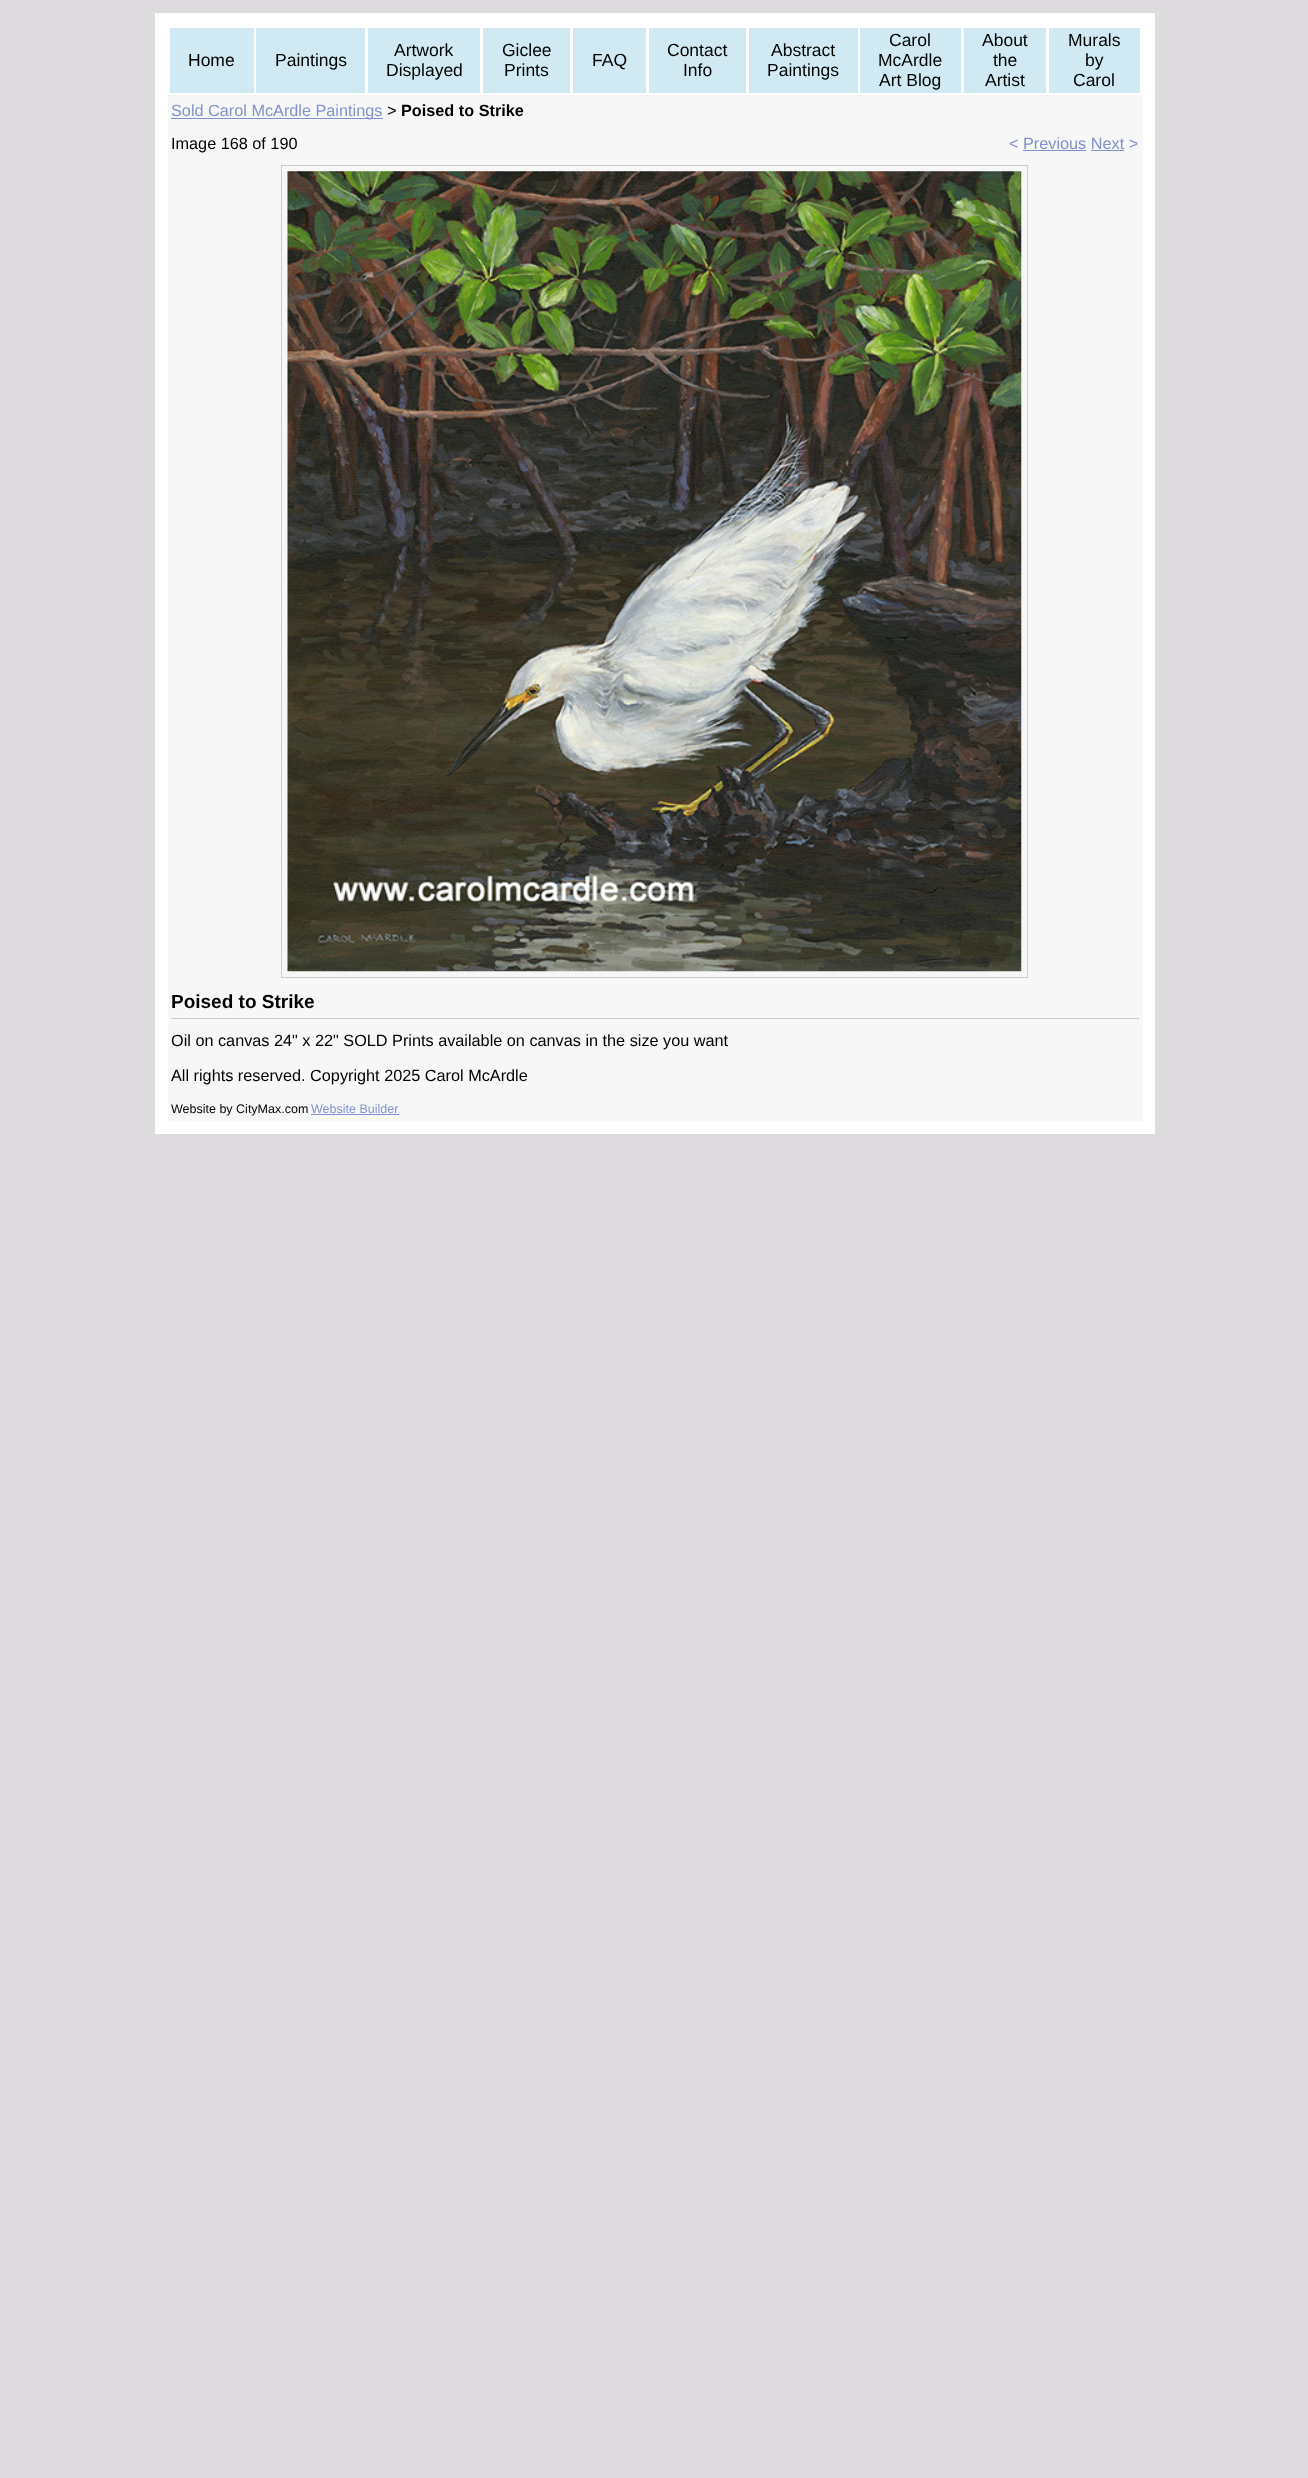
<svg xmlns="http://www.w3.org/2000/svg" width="1308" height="2478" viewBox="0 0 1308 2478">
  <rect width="100%" height="100%" fill="#dedbde"/>
  <rect x="155" y="13" width="1000" height="1121" fill="#ffffff"/>
  <rect x="170" y="28" width="84" height="65" fill="#d0e9f2"/>
  <text x="188" y="66" font-family="Liberation Sans" font-size="17.5" fill="#000000">Home</text>
  <rect x="256" y="28" width="109" height="65" fill="#d0e9f2"/>
  <text x="275" y="66" font-family="Liberation Sans" font-size="17.5" fill="#000000">Paintings</text>
  <rect x="368" y="28" width="112" height="65" fill="#d0e9f2"/>
  <text x="394" y="56" font-family="Liberation Sans" font-size="17.5" fill="#000000">Artwork</text>
  <text x="386" y="76" font-family="Liberation Sans" font-size="17.5" fill="#000000">Displayed</text>
  <rect x="483" y="28" width="87" height="65" fill="#d0e9f2"/>
  <text x="502" y="56" font-family="Liberation Sans" font-size="17.5" fill="#000000">Giclee</text>
  <text x="504" y="76" font-family="Liberation Sans" font-size="17.5" fill="#000000">Prints</text>
  <rect x="573" y="28" width="73" height="65" fill="#d0e9f2"/>
  <text x="592" y="66" font-family="Liberation Sans" font-size="17.5" fill="#000000">FAQ</text>
  <rect x="649" y="28" width="97" height="65" fill="#d0e9f2"/>
  <text x="667" y="56" font-family="Liberation Sans" font-size="17.5" fill="#000000">Contact</text>
  <text x="683" y="76" font-family="Liberation Sans" font-size="17.5" fill="#000000">Info</text>
  <rect x="749" y="28" width="109" height="65" fill="#d0e9f2"/>
  <text x="771" y="56" font-family="Liberation Sans" font-size="17.5" fill="#000000">Abstract</text>
  <text x="767" y="76" font-family="Liberation Sans" font-size="17.5" fill="#000000">Paintings</text>
  <rect x="860" y="28" width="101" height="65" fill="#d0e9f2"/>
  <text x="889" y="46" font-family="Liberation Sans" font-size="17.5" fill="#000000">Carol</text>
  <text x="878" y="66" font-family="Liberation Sans" font-size="17.5" fill="#000000">McArdle</text>
  <text x="879" y="86" font-family="Liberation Sans" font-size="17.5" fill="#000000">Art Blog</text>
  <rect x="964" y="28" width="82" height="65" fill="#d0e9f2"/>
  <text x="982" y="46" font-family="Liberation Sans" font-size="17.5" fill="#000000">About</text>
  <text x="993" y="66" font-family="Liberation Sans" font-size="17.5" fill="#000000">the</text>
  <text x="985" y="86" font-family="Liberation Sans" font-size="17.5" fill="#000000">Artist</text>
  <rect x="1049" y="28" width="91" height="65" fill="#d0e9f2"/>
  <text x="1068" y="46" font-family="Liberation Sans" font-size="17.5" fill="#000000">Murals</text>
  <text x="1085" y="66" font-family="Liberation Sans" font-size="17.5" fill="#000000">by</text>
  <text x="1073" y="86" font-family="Liberation Sans" font-size="17.5" fill="#000000">Carol</text>
  <rect x="168" y="95" width="975" height="1026" fill="#f7f7f7"/>
  <rect x="171" y="118" width="212" height="1" fill="#8192cc"/>
  <text x="171" y="116" font-family="Liberation Sans" font-size="16.25" fill="#8192cc">Sold Carol McArdle Paintings</text>
  <text x="387" y="116" font-family="Liberation Mono" font-size="16.25" fill="#000000">&gt;</text>
  <text x="401" y="116" font-family="Liberation Sans" font-size="16.25" font-weight="bold" fill="#000000">Poised to Strike</text>
  <text x="171" y="149" font-family="Liberation Sans" font-size="16.25" fill="#000000">Image 168 of 190</text>
  <text x="1009" y="149" font-family="Liberation Sans" font-size="16.25" fill="#8192cc">&lt; Previous Next &gt;</text>
  <rect x="1023" y="150" width="63" height="1" fill="#8192cc"/>
  <rect x="1091" y="150" width="33" height="1" fill="#8192cc"/>
  <rect x="281.5" y="165.5" width="746" height="812" fill="none" stroke="#cccccc"/>
  <image x="287" y="171" width="735" height="801" href="img1.png"/>
  <rect x="171" y="1018" width="968" height="1" fill="#cccccc"/>
  <text x="171" y="1008" font-family="Liberation Sans" font-size="19" font-weight="bold" fill="#000000">Poised to Strike</text>
  <text x="171" y="1046" font-family="Liberation Sans" font-size="16.25" fill="#000000">Oil on canvas 24" x 22" SOLD Prints available on canvas in the size you want</text>
  <text x="171" y="1081" font-family="Liberation Sans" font-size="16.25" fill="#000000">All rights reserved. Copyright 2025 Carol McArdle</text>
  <text x="171" y="1113" font-family="Liberation Sans" font-size="12.5" fill="#000000">Website by CityMax.com</text>
  <text x="311" y="1113" font-family="Liberation Sans" font-size="12.5" fill="#8192cc">Website Builder</text>
  <rect x="311" y="1114" width="88" height="1" fill="#8192cc"/>
</svg>
